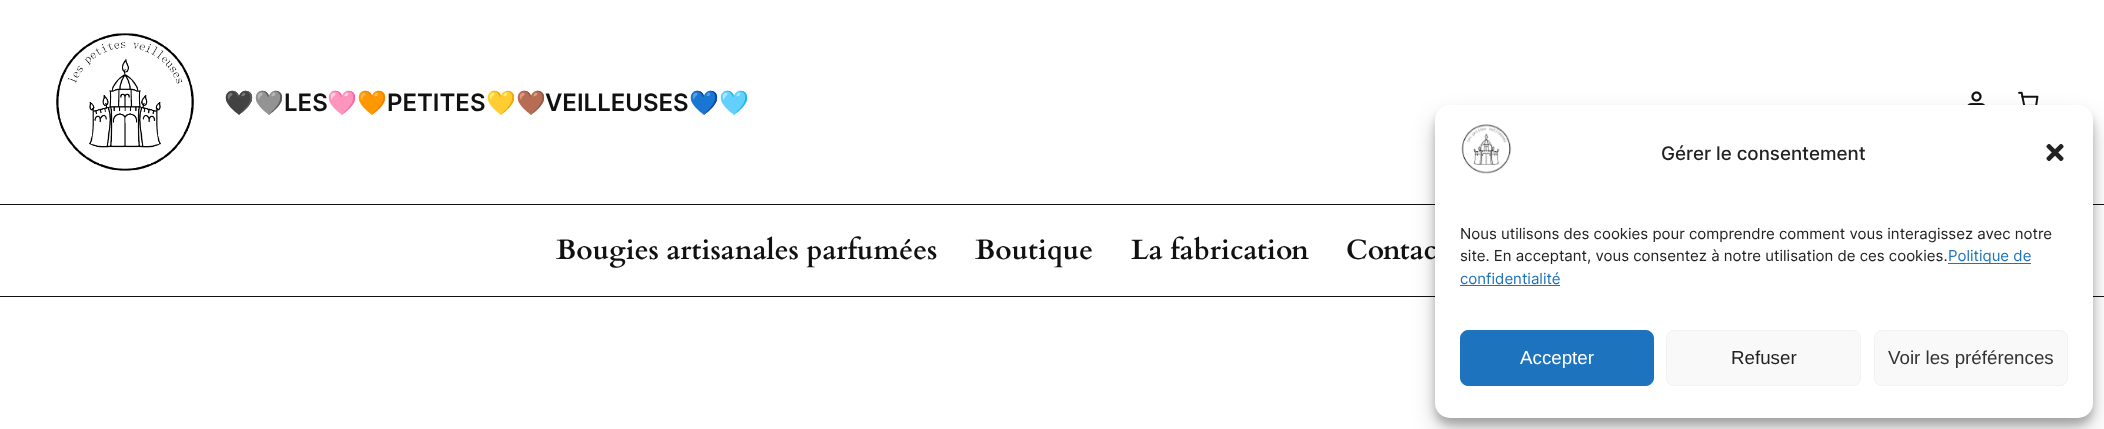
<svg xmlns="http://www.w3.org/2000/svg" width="2104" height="429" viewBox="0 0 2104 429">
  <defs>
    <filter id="blur1" x="-50%" y="-200%" width="200%" height="500%"><feGaussianBlur stdDeviation="4"/></filter>
    <filter id="blur2" x="-50%" y="-200%" width="200%" height="500%"><feGaussianBlur stdDeviation="12.5"/></filter>
  </defs>
  <rect width="100%" height="100%" fill="#ffffff"/>
  <image x="56" y="33" width="138" height="138" href="img1.png"/>
  <text x="224" y="111" font-family="Noto Color Emoji" font-size="24" font-weight="bold" fill="#111111">🖤🩶</text>
  <text x="284" y="111" font-family="Inter" font-size="24" font-weight="600" fill="#111111">LES</text>
  <text x="327" y="111" font-family="Noto Color Emoji" font-size="24" font-weight="bold" fill="#111111">🩷🧡</text>
  <text x="387" y="111" font-family="Inter" font-size="24" font-weight="600" fill="#111111">PETITES</text>
  <text x="486" y="111" font-family="Noto Color Emoji" font-size="24" font-weight="bold" fill="#111111">💛🤎</text>
  <text x="545" y="111" font-family="Inter" font-size="24" font-weight="600" fill="#111111">VEILLEUSES</text>
  <text x="689" y="111" font-family="Noto Color Emoji" font-size="24" font-weight="bold" fill="#111111">💙🩵</text>
  <image x="1967" y="91" width="18" height="14" href="img2.png"/>
  <image x="2018" y="91" width="21" height="14" href="img3.png"/>
  <rect x="0" y="204" width="2104" height="1" fill="#111111"/>
  <text x="556" y="259" font-family="Cardo" font-size="28" font-weight="bold" fill="#111111">Bougies artisanales parfumées</text>
  <text x="975" y="259" font-family="Cardo" font-size="28" font-weight="bold" fill="#111111">Boutique</text>
  <text x="1131" y="259" font-family="Cardo" font-size="28" font-weight="bold" fill="#111111">La fabrication</text>
  <text x="1346" y="259" font-family="Cardo" font-size="28" font-weight="bold" fill="#111111">Contac</text>
  <rect x="0" y="296" width="2104" height="1" fill="#111111"/>
  <rect x="1435" y="113" width="658" height="312" rx="15" fill="#000000" fill-opacity="0.23" filter="url(#blur1)"/>
  <rect x="1435" y="118" width="658" height="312" rx="15" fill="#000000" fill-opacity="0.19" filter="url(#blur2)"/>
  <rect x="1435" y="105" width="658" height="313" rx="15" fill="#ffffff"/>
  <image x="1461" y="124" width="51" height="50" href="img4.png"/>
  <text x="1661" y="160" font-family="Inter" font-size="18.75" font-weight="500" fill="#222222">Gérer le consentement</text>
  <image x="2046" y="143" width="18" height="18" href="img5.png"/>
  <text x="1460" y="239" font-family="Inter" font-size="15" fill="#222222">Nous utilisons des cookies pour comprendre comment vous interagissez avec notre</text>
  <text x="1460" y="261" font-family="Inter" font-size="15" fill="#222222">site. En acceptant, vous consentez à notre utilisation de ces cookies.</text>
  <rect x="1948" y="263" width="83" height="1" fill="#1e73be"/>
  <text x="1948" y="261" font-family="Inter" font-size="15" fill="#1e73be">Politique de</text>
  <text x="1460" y="284" font-family="Inter" font-size="15" fill="#1e73be">confidentialité</text>
  <rect x="1460" y="285" width="100" height="1" fill="#1e73be"/>
  <rect x="1460.5" y="330.5" width="193" height="55" rx="7.5" fill="#1e73be" stroke="#1e73be"/>
  <text x="1520" y="364" font-family="Liberation Sans" font-size="18.75" fill="#ffffff">Accepter</text>
  <rect x="1666.5" y="330.5" width="194" height="55" rx="7.5" fill="#f9f9f9" stroke="#f2f2f2"/>
  <text x="1731" y="364" font-family="Liberation Sans" font-size="18.75" fill="#222222">Refuser</text>
  <rect x="1874.5" y="330.5" width="193" height="55" rx="7.5" fill="#f9f9f9" stroke="#f2f2f2"/>
  <text x="1888" y="364" font-family="Liberation Sans" font-size="18.75" fill="#333333">Voir les préférences</text>
</svg>
